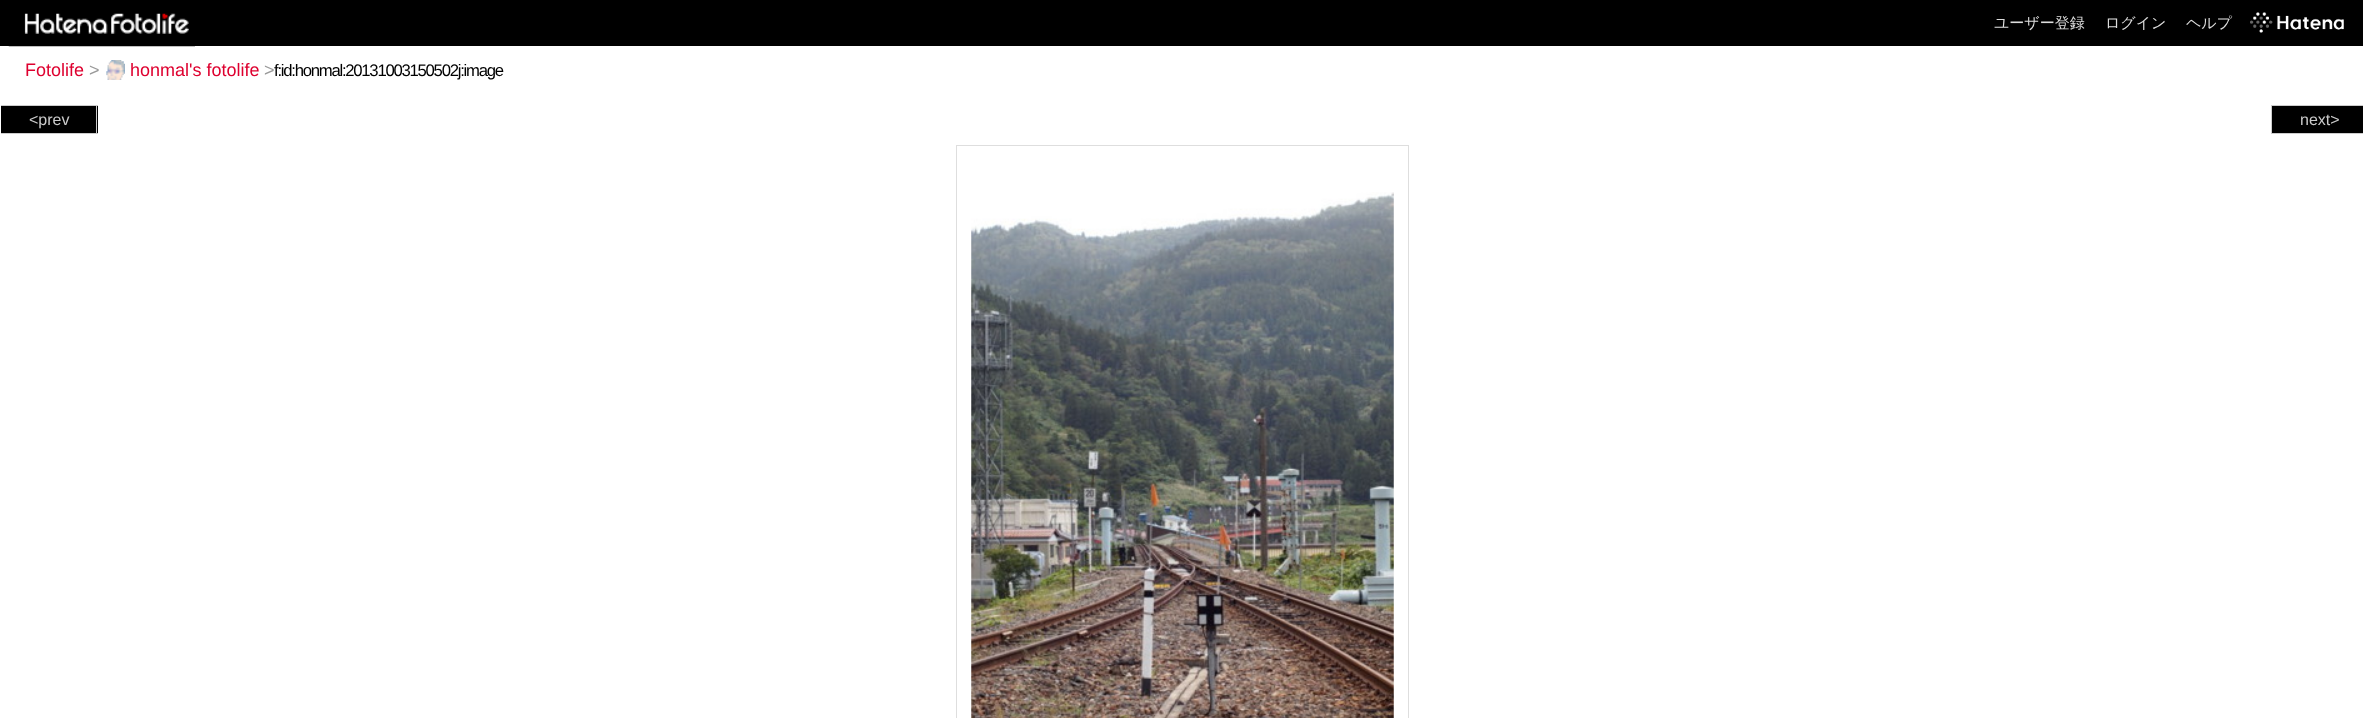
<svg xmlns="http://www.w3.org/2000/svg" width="2363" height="718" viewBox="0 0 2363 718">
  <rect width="100%" height="100%" fill="#ffffff"/>
  <rect x="0" y="0" width="2363" height="46" fill="#000000"/>
  <image x="8" y="13" width="104" height="34" href="img1.png"/>
  <image x="111" y="13" width="84" height="34" href="img2.png"/>
  <text x="1994" y="28" font-family="WenQuanYi Zen Hei" font-size="15" font-weight="500" fill="#dddddd">ユーザー登録</text>
  <text x="2105" y="28" font-family="WenQuanYi Zen Hei" font-size="15" font-weight="500" fill="#dddddd">ログイン</text>
  <text x="2186" y="28" font-family="WenQuanYi Zen Hei" font-size="15" font-weight="500" fill="#dddddd">ヘルプ</text>
  <image x="2250" y="12" width="94" height="21" href="img3.png"/>
  <text x="25" y="76" font-family="Liberation Sans" font-size="18" fill="#de002f">Fotolife</text>
  <text x="89" y="76" font-family="Liberation Sans" font-size="18" fill="#999999">&gt;</text>
  <image x="106" y="60" width="19" height="20" href="img4.png"/>
  <text x="130" y="76" font-family="Liberation Sans" font-size="18" fill="#de002f">honmal's fotolife</text>
  <text x="264" y="76" font-family="Liberation Sans" font-size="18" fill="#999999">&gt;</text>
  <text x="274" y="76" font-family="Liberation Sans" font-size="16.7" letter-spacing="-1.25" fill="#000000">f:id:honmal:20131003150502j:image</text>
  <rect x="1" y="106" width="97" height="27" fill="#000000"/>
  <rect x="1" y="105" width="97" height="1" fill="#cccccc"/>
  <rect x="96" y="105" width="1" height="29" fill="#cccccc"/>
  <rect x="1" y="133" width="97" height="1" fill="#cccccc"/>
  <text x="29" y="125" font-family="Liberation Sans" font-size="16" fill="#cccccc">&lt;prev</text>
  <rect x="2272" y="106" width="91" height="27" fill="#000000"/>
  <rect x="2271" y="105" width="92" height="1" fill="#cccccc"/>
  <rect x="2271" y="133" width="92" height="1" fill="#cccccc"/>
  <rect x="2271" y="105" width="1" height="29" fill="#cccccc"/>
  <text x="2300" y="125" font-family="Liberation Sans" font-size="16" fill="#cccccc">next&gt;</text>
  <rect x="956.5" y="145.5" width="452" height="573" fill="none" stroke="#dedede"/>
  <image x="971" y="192" width="423" height="526" href="img5.png"/>
</svg>
